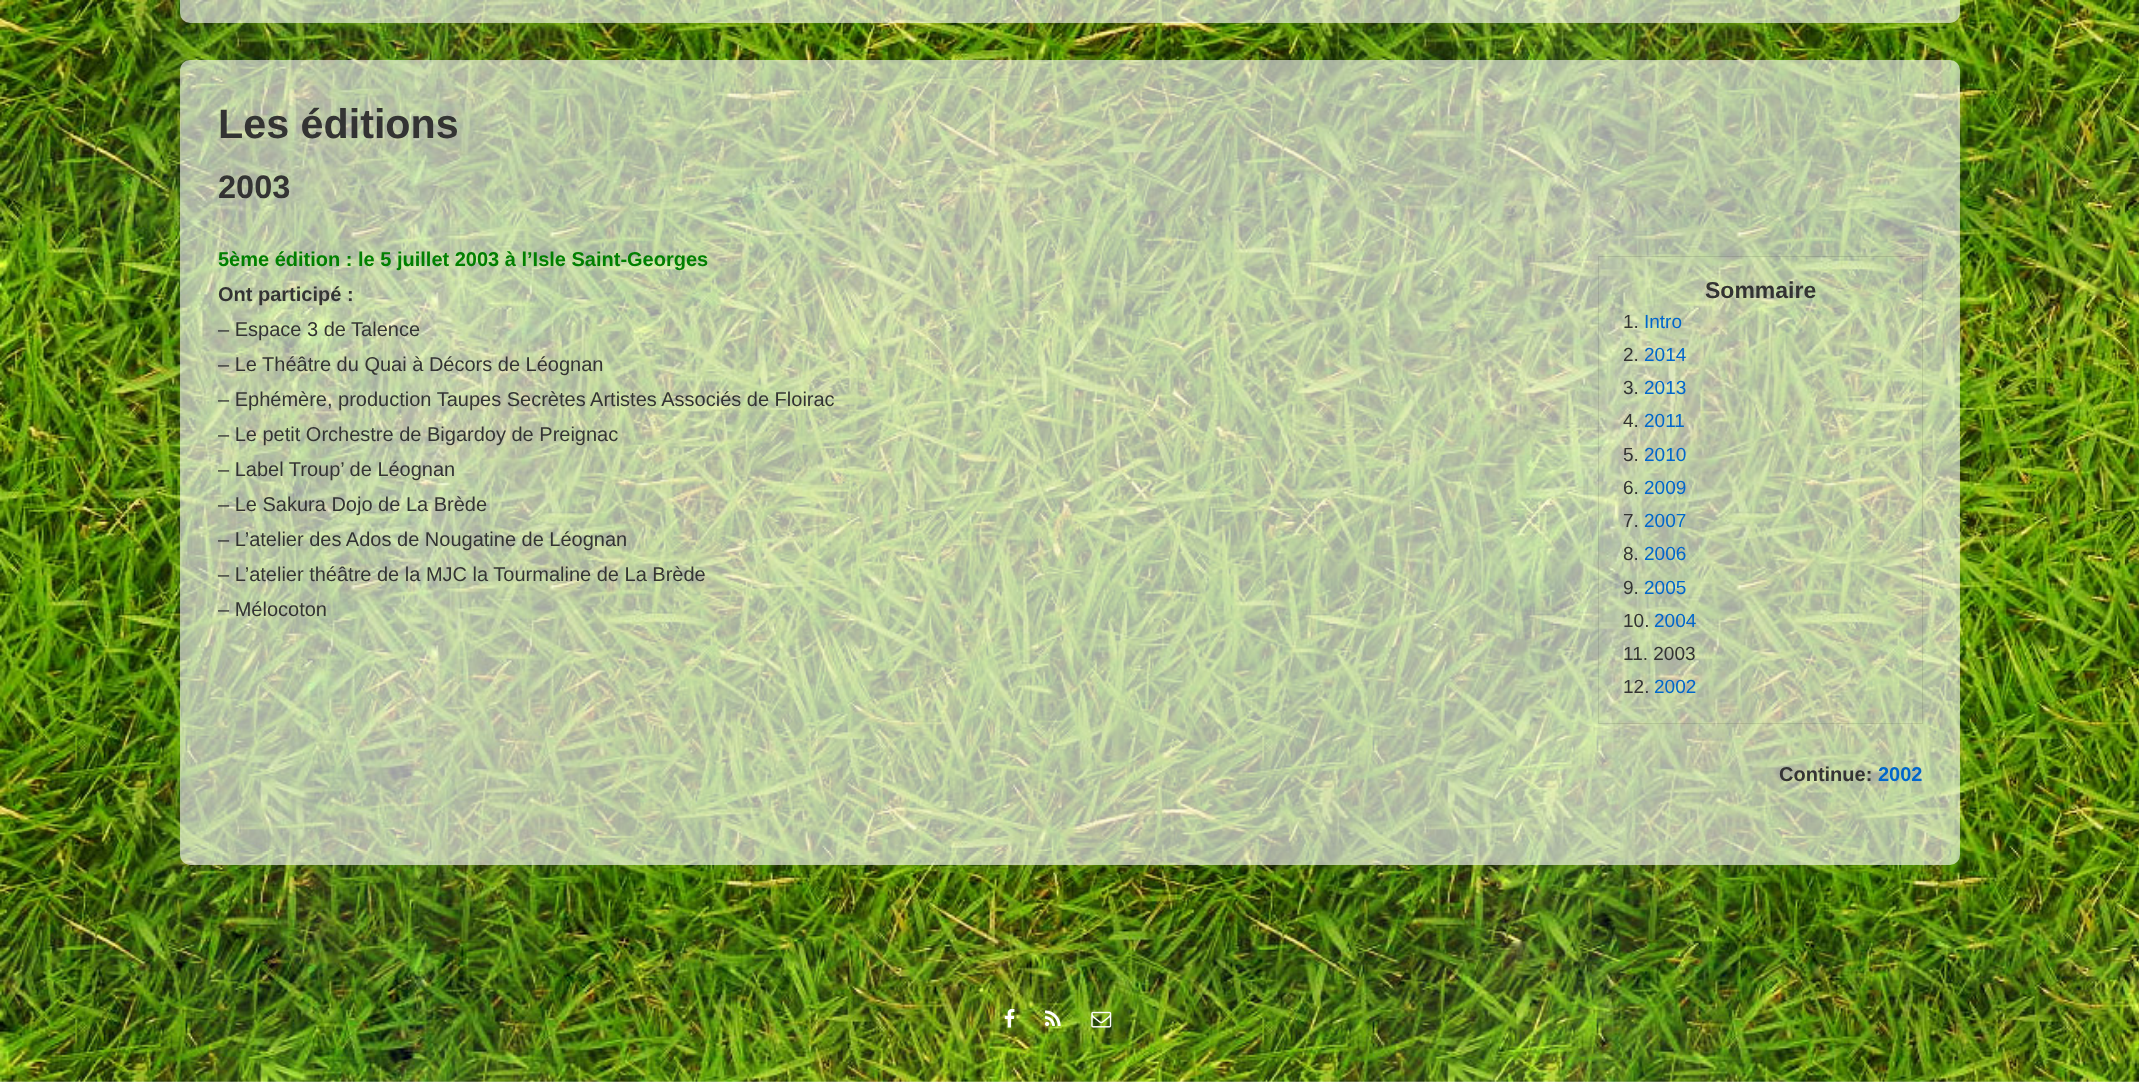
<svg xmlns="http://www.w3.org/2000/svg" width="2139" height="1082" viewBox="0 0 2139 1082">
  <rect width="100%" height="100%" fill="#ffffff"/>
  <image x="0" y="0" width="2139" height="1082" href="img1.png"/>
  <rect x="180" y="-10" width="1780" height="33" rx="10" fill="#ffffff" fill-opacity="0.62"/>
  <rect x="180" y="60" width="1780" height="805" rx="10" fill="#ffffff" fill-opacity="0.62"/>
  <text x="218" y="138" font-family="Liberation Sans" font-size="41.25" font-weight="bold" fill="#333333">Les éditions</text>
  <text x="218" y="198" font-family="Liberation Sans" font-size="32.5" font-weight="bold" fill="#333333">2003</text>
  <text x="218" y="266" font-family="Liberation Sans" font-size="20" font-weight="bold" fill="#008000">5ème édition : le 5 juillet 2003 à l’Isle Saint-Georges</text>
  <text x="218" y="301" font-family="Liberation Sans" font-size="20" font-weight="bold" fill="#333333">Ont participé :</text>
  <text x="218" y="336" font-family="Liberation Sans" font-size="20" fill="#333333">– Espace 3 de Talence</text>
  <text x="218" y="371" font-family="Liberation Sans" font-size="20" fill="#333333">– Le Théâtre du Quai à Décors de Léognan</text>
  <text x="218" y="406" font-family="Liberation Sans" font-size="20" fill="#333333">– Ephémère, production Taupes Secrètes Artistes Associés de Floirac</text>
  <text x="218" y="441" font-family="Liberation Sans" font-size="20" fill="#333333">– Le petit Orchestre de Bigardoy de Preignac</text>
  <text x="218" y="476" font-family="Liberation Sans" font-size="20" fill="#333333">– Label Troup’ de Léognan</text>
  <text x="218" y="511" font-family="Liberation Sans" font-size="20" fill="#333333">– Le Sakura Dojo de La Brède</text>
  <text x="218" y="546" font-family="Liberation Sans" font-size="20" fill="#333333">– L’atelier des Ados de Nougatine de Léognan</text>
  <text x="218" y="581" font-family="Liberation Sans" font-size="20" fill="#333333">– L’atelier théâtre de la MJC la Tourmaline de La Brède</text>
  <text x="218" y="616" font-family="Liberation Sans" font-size="20" fill="#333333">– Mélocoton</text>
  <rect x="1598.5" y="256.5" width="324" height="467" fill="none" stroke="#000000" stroke-opacity="0.1"/>
  <text x="1705" y="298" font-family="Liberation Sans" font-size="23" font-weight="bold" fill="#333333">Sommaire</text>
  <text x="1623" y="328" font-family="Liberation Sans" font-size="19" fill="#333333">1.</text>
  <text x="1644" y="328" font-family="Liberation Sans" font-size="19" fill="#0066cc">Intro</text>
  <text x="1623" y="361" font-family="Liberation Sans" font-size="19" fill="#333333">2.</text>
  <text x="1644" y="361" font-family="Liberation Sans" font-size="19" fill="#0066cc">2014</text>
  <text x="1623" y="394" font-family="Liberation Sans" font-size="19" fill="#333333">3.</text>
  <text x="1644" y="394" font-family="Liberation Sans" font-size="19" fill="#0066cc">2013</text>
  <text x="1623" y="427" font-family="Liberation Sans" font-size="19" fill="#333333">4.</text>
  <text x="1644" y="427" font-family="Liberation Sans" font-size="19" fill="#0066cc">2011</text>
  <text x="1623" y="461" font-family="Liberation Sans" font-size="19" fill="#333333">5.</text>
  <text x="1644" y="461" font-family="Liberation Sans" font-size="19" fill="#0066cc">2010</text>
  <text x="1623" y="494" font-family="Liberation Sans" font-size="19" fill="#333333">6.</text>
  <text x="1644" y="494" font-family="Liberation Sans" font-size="19" fill="#0066cc">2009</text>
  <text x="1623" y="527" font-family="Liberation Sans" font-size="19" fill="#333333">7.</text>
  <text x="1644" y="527" font-family="Liberation Sans" font-size="19" fill="#0066cc">2007</text>
  <text x="1623" y="560" font-family="Liberation Sans" font-size="19" fill="#333333">8.</text>
  <text x="1644" y="560" font-family="Liberation Sans" font-size="19" fill="#0066cc">2006</text>
  <text x="1623" y="594" font-family="Liberation Sans" font-size="19" fill="#333333">9.</text>
  <text x="1644" y="594" font-family="Liberation Sans" font-size="19" fill="#0066cc">2005</text>
  <text x="1623" y="627" font-family="Liberation Sans" font-size="19" fill="#333333">10.</text>
  <text x="1654" y="627" font-family="Liberation Sans" font-size="19" fill="#0066cc">2004</text>
  <text x="1623" y="660" font-family="Liberation Sans" font-size="19" fill="#333333">11. 2003</text>
  <text x="1623" y="693" font-family="Liberation Sans" font-size="19" fill="#333333">12.</text>
  <text x="1654" y="693" font-family="Liberation Sans" font-size="19" fill="#0066cc">2002</text>
  <text x="1779" y="781" font-family="Liberation Sans" font-size="20" font-weight="bold" fill="#333333">Continue:</text>
  <text x="1878" y="781" font-family="Liberation Sans" font-size="20" font-weight="bold" fill="#0066cc">2002</text>
  <image x="1004" y="1008" width="11" height="20" href="img2.png"/>
  <image x="1045" y="1010" width="16" height="17" href="img3.png"/>
  <image x="1091" y="1011" width="21" height="17" href="img4.png"/>
</svg>
